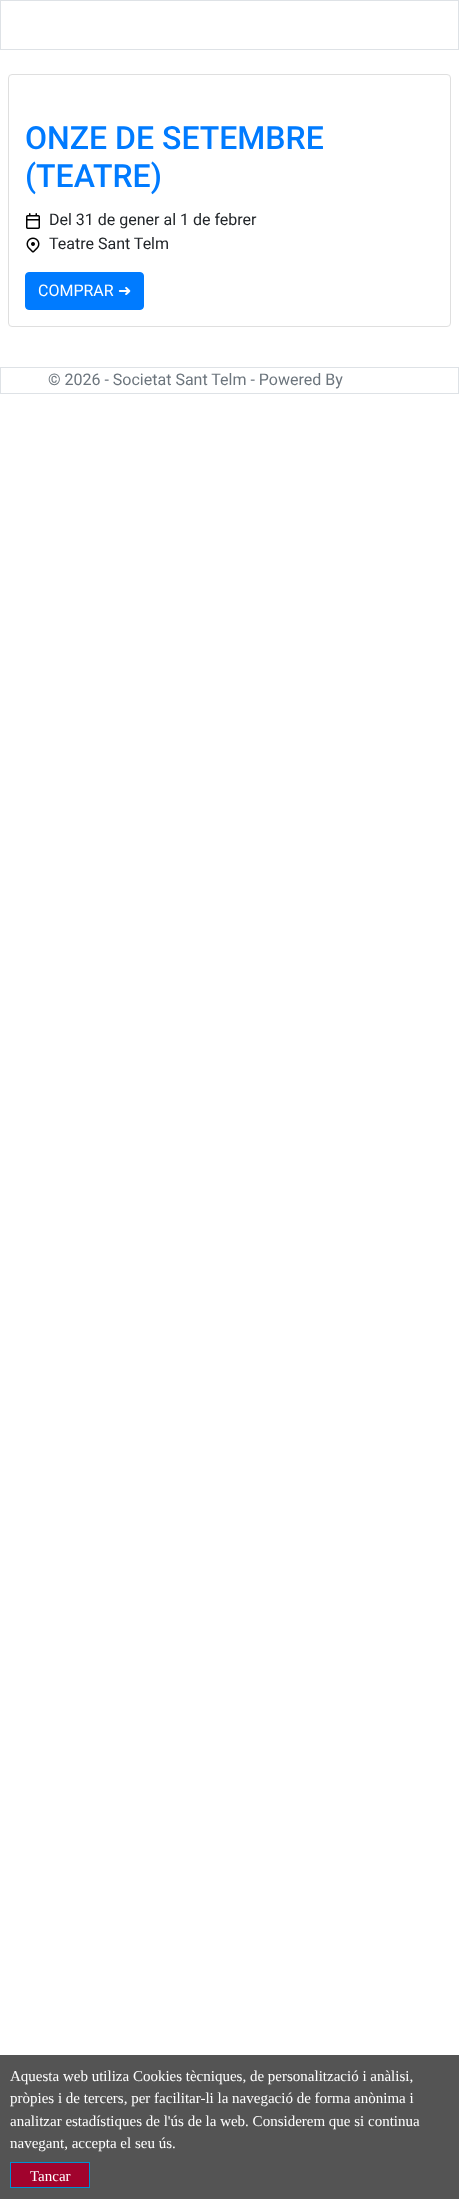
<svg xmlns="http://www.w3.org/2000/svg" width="459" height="2199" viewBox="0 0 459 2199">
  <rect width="100%" height="100%" fill="#ffffff"/>
  <rect x="0.5" y="0.5" width="458" height="49" fill="none" stroke="#dee2e6"/>
  <rect x="8.5" y="74.5" width="442" height="252" rx="3.5" fill="none" stroke="#dfdfdf"/>
  <text x="25" y="149" font-family="Roboto" font-size="32" font-weight="500" fill="#007bff">ONZE DE SETEMBRE</text>
  <text x="25" y="187" font-family="Roboto" font-size="32" font-weight="500" fill="#007bff">(TEATRE)</text>
  <image x="26" y="213" width="14" height="16" href="img1.png"/>
  <text x="49" y="225" font-family="Roboto" font-size="16" fill="#212529">Del 31 de gener al 1 de febrer</text>
  <image x="26" y="237" width="14" height="16" href="img2.png"/>
  <text x="49" y="249" font-family="Roboto" font-size="16" fill="#212529">Teatre Sant Telm</text>
  <rect x="25.5" y="272.5" width="118" height="37" rx="3.5" fill="#007bff" stroke="#007bff"/>
  <text x="38" y="296" font-family="Roboto" font-size="16" fill="#ffffff">COMPRAR</text>
  <text x="118" y="296" font-family="DejaVu Sans" font-size="16" fill="#ffffff">➜</text>
  <rect x="0" y="2055" width="459" height="144" fill="#545454"/>
  <text x="10" y="2081" font-family="Liberation Serif" font-size="15" fill="#ffffff">Aquesta web utiliza Cookies tècniques, de personalització i anàlisi,</text>
  <text x="10" y="2103" font-family="Liberation Serif" font-size="15" fill="#ffffff">pròpies i de tercers, per facilitar-li la navegació de forma anònima i</text>
  <text x="10" y="2126" font-family="Liberation Serif" font-size="15" fill="#ffffff">analitzar estadístiques de l'ús de la web. Considerem que si continua</text>
  <text x="10" y="2148" font-family="Liberation Serif" font-size="15" fill="#ffffff">navegant, accepta el seu ús.</text>
  <rect x="10.5" y="2162.5" width="79" height="25" fill="#a1032d" stroke="#0091d2"/>
  <text x="30" y="2181" font-family="Liberation Serif" font-size="15" fill="#ffffff">Tancar</text>
  <rect x="0.5" y="367.5" width="458" height="26" fill="none" stroke="#dee2e6"/>
  <text x="48" y="385" font-family="Roboto" font-size="16" fill="#6c757d">© 2026 - Societat Sant Telm - Powered By</text>
</svg>
